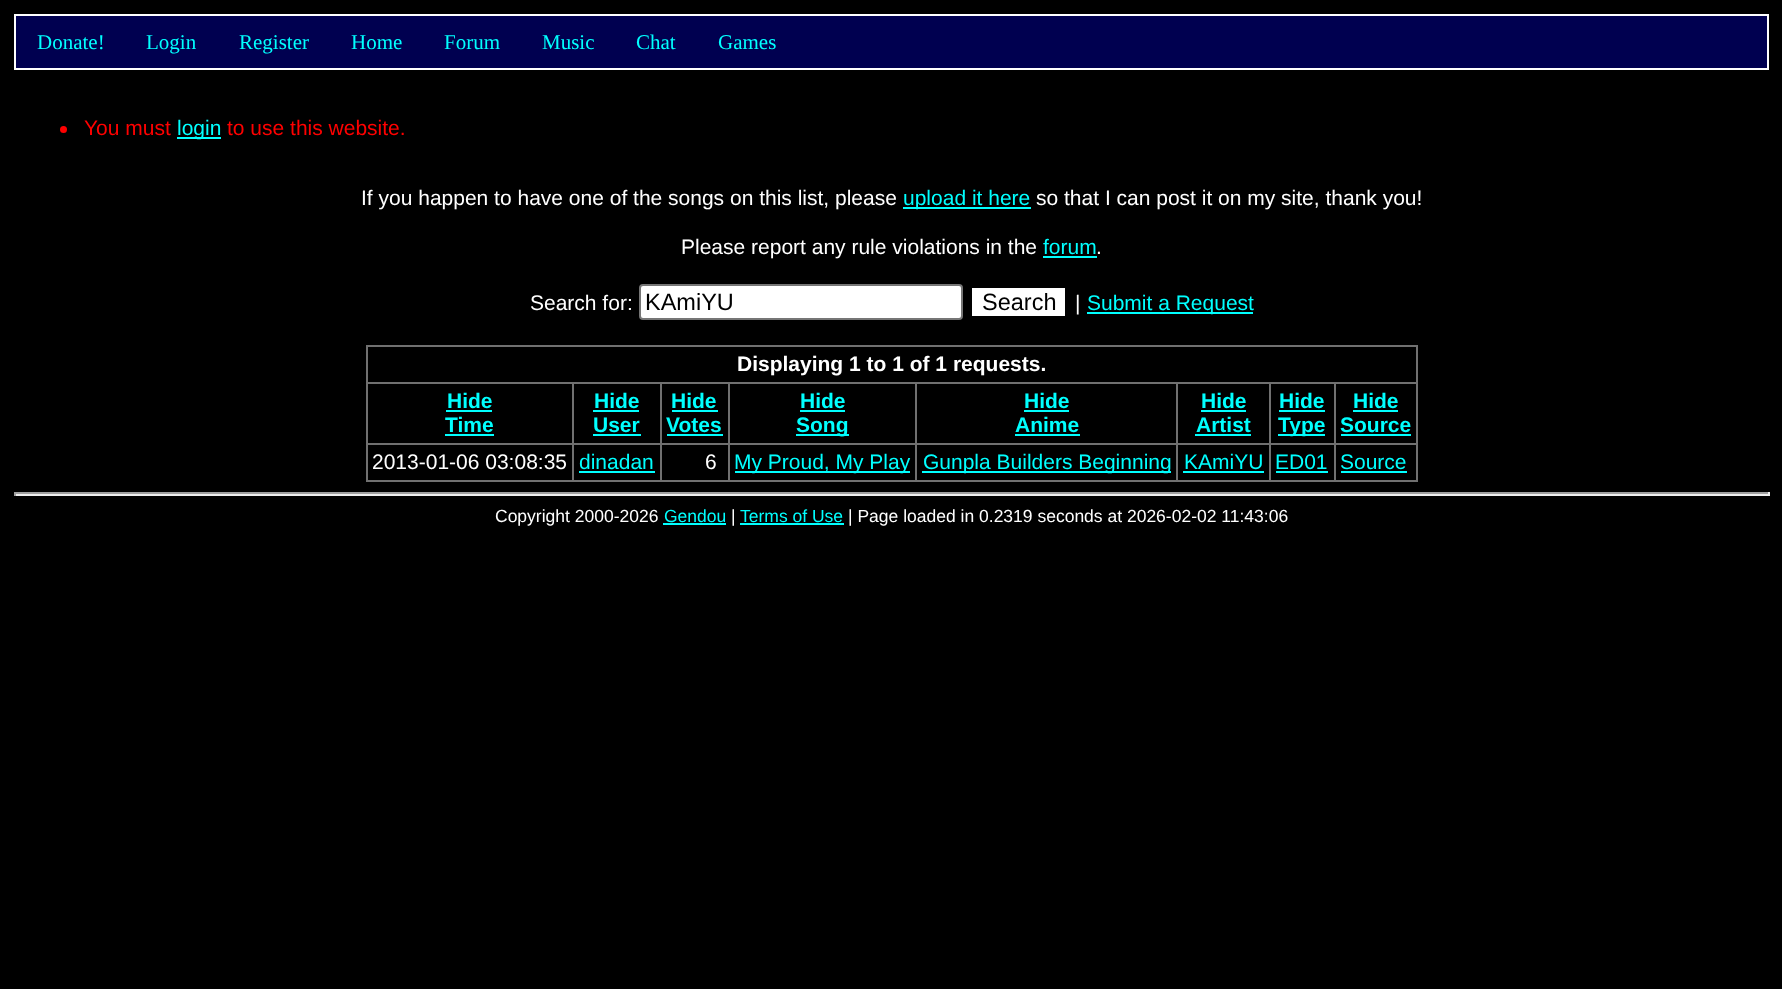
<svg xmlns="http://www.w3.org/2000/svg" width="1782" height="989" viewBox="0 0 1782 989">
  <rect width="100%" height="100%" fill="#000000"/>
  <rect x="15" y="15" width="1753" height="54" fill="#000050" stroke="#ffffff" stroke-width="2"/>
  <text x="37" y="49" font-family="Liberation Serif" font-size="21" fill="#00ffff">Donate!</text>
  <text x="146" y="49" font-family="Liberation Serif" font-size="21" fill="#00ffff">Login</text>
  <text x="239" y="49" font-family="Liberation Serif" font-size="21" fill="#00ffff">Register</text>
  <text x="351" y="49" font-family="Liberation Serif" font-size="21" fill="#00ffff">Home</text>
  <text x="444" y="49" font-family="Liberation Serif" font-size="21" fill="#00ffff">Forum</text>
  <text x="542" y="49" font-family="Liberation Serif" font-size="21" fill="#00ffff">Music</text>
  <text x="636" y="49" font-family="Liberation Serif" font-size="21" fill="#00ffff">Chat</text>
  <text x="718" y="49" font-family="Liberation Serif" font-size="21" fill="#00ffff">Games</text>
  <circle cx="63.5" cy="129.5" r="3.5" fill="#ff0000"/>
  <text x="84" y="135" font-family="Liberation Sans" font-size="21" fill="#ff0000">You must</text>
  <rect x="177" y="137" width="44" height="2" fill="#00ffff"/>
  <text x="177" y="135" font-family="Liberation Sans" font-size="21" fill="#00ffff">login</text>
  <text x="227" y="135" font-family="Liberation Sans" font-size="21" fill="#ff0000">to use this website.</text>
  <text x="361" y="205" font-family="Liberation Sans" font-size="21" fill="#ffffff">If you happen to have one of the songs on this list, please</text>
  <rect x="903" y="207" width="128" height="2" fill="#00ffff"/>
  <text x="903" y="205" font-family="Liberation Sans" font-size="21" fill="#00ffff">upload it here</text>
  <text x="1036" y="205" font-family="Liberation Sans" font-size="21" fill="#ffffff">so that I can post it on my site, thank you!</text>
  <text x="681" y="254" font-family="Liberation Sans" font-size="21" fill="#ffffff">Please report any rule violations in the</text>
  <text x="1043" y="254" font-family="Liberation Sans" font-size="21" fill="#00ffff">forum</text>
  <rect x="1043" y="256" width="54" height="2" fill="#00ffff"/>
  <text x="1096" y="254" font-family="Liberation Sans" font-size="21" fill="#ffffff">.</text>
  <text x="530" y="310" font-family="Liberation Sans" font-size="21" fill="#ffffff">Search for:</text>
  <rect x="640" y="285" width="322" height="34" rx="3" fill="#ffffff" stroke="#767676" stroke-width="2"/>
  <text x="645" y="310" font-family="Liberation Sans" font-size="23.5" fill="#000000">KAmiYU</text>
  <rect x="972" y="288" width="93" height="28" fill="#ffffff"/>
  <text x="982" y="310" font-family="Liberation Sans" font-size="23.5" fill="#000000">Search</text>
  <text x="1075" y="310" font-family="Liberation Sans" font-size="21" fill="#ffffff">|</text>
  <rect x="1087" y="312" width="166" height="2" fill="#00ffff"/>
  <text x="1087" y="310" font-family="Liberation Sans" font-size="21" fill="#00ffff">Submit a Request</text>
  <rect x="1416" y="345" width="2" height="136" fill="#707070"/>
  <rect x="366" y="480" width="1052" height="2" fill="#707070"/>
  <rect x="366" y="345" width="1052" height="2" fill="#707070"/>
  <rect x="1334" y="382" width="84" height="2" fill="#707070"/>
  <rect x="1334" y="443" width="84" height="2" fill="#707070"/>
  <rect x="1334" y="443" width="2" height="38" fill="#707070"/>
  <rect x="1269" y="443" width="66" height="2" fill="#707070"/>
  <rect x="1334" y="382" width="2" height="63" fill="#707070"/>
  <rect x="1269" y="382" width="66" height="2" fill="#707070"/>
  <rect x="1269" y="443" width="2" height="38" fill="#707070"/>
  <rect x="1176" y="443" width="95" height="2" fill="#707070"/>
  <rect x="1269" y="382" width="2" height="63" fill="#707070"/>
  <rect x="1176" y="382" width="95" height="2" fill="#707070"/>
  <rect x="1176" y="443" width="2" height="38" fill="#707070"/>
  <rect x="915" y="443" width="263" height="2" fill="#707070"/>
  <rect x="1176" y="382" width="2" height="63" fill="#707070"/>
  <rect x="915" y="382" width="263" height="2" fill="#707070"/>
  <rect x="915" y="443" width="2" height="38" fill="#707070"/>
  <rect x="728" y="443" width="189" height="2" fill="#707070"/>
  <rect x="915" y="382" width="2" height="63" fill="#707070"/>
  <rect x="728" y="382" width="189" height="2" fill="#707070"/>
  <rect x="728" y="443" width="2" height="38" fill="#707070"/>
  <rect x="660" y="443" width="70" height="2" fill="#707070"/>
  <rect x="728" y="382" width="2" height="63" fill="#707070"/>
  <rect x="660" y="382" width="70" height="2" fill="#707070"/>
  <rect x="660" y="443" width="2" height="38" fill="#707070"/>
  <rect x="572" y="443" width="90" height="2" fill="#707070"/>
  <rect x="660" y="382" width="2" height="63" fill="#707070"/>
  <rect x="572" y="382" width="90" height="2" fill="#707070"/>
  <rect x="572" y="443" width="2" height="38" fill="#707070"/>
  <rect x="366" y="443" width="208" height="2" fill="#707070"/>
  <rect x="572" y="382" width="2" height="63" fill="#707070"/>
  <rect x="366" y="382" width="208" height="2" fill="#707070"/>
  <rect x="366" y="443" width="2" height="38" fill="#707070"/>
  <rect x="366" y="382" width="2" height="63" fill="#707070"/>
  <rect x="366" y="345" width="2" height="38" fill="#707070"/>
  <text x="737" y="371" font-family="Liberation Sans" font-size="21" font-weight="bold" fill="#ffffff">Displaying 1 to 1 of 1 requests.</text>
  <text x="447" y="408" font-family="Liberation Sans" font-size="21" font-weight="bold" fill="#00ffff">Hide</text>
  <rect x="446" y="410" width="46" height="2" fill="#00ffff"/>
  <text x="445" y="432" font-family="Liberation Sans" font-size="21" font-weight="bold" fill="#00ffff">Time</text>
  <rect x="445" y="434" width="49" height="2" fill="#00ffff"/>
  <text x="594" y="408" font-family="Liberation Sans" font-size="21" font-weight="bold" fill="#00ffff">Hide</text>
  <rect x="593" y="410" width="46" height="2" fill="#00ffff"/>
  <text x="593" y="432" font-family="Liberation Sans" font-size="21" font-weight="bold" fill="#00ffff">User</text>
  <rect x="593" y="434" width="48" height="2" fill="#00ffff"/>
  <text x="671" y="408" font-family="Liberation Sans" font-size="21" font-weight="bold" fill="#00ffff">Hide</text>
  <rect x="672" y="410" width="46" height="2" fill="#00ffff"/>
  <text x="666" y="432" font-family="Liberation Sans" font-size="21" font-weight="bold" fill="#00ffff">Votes</text>
  <rect x="667" y="434" width="56" height="2" fill="#00ffff"/>
  <text x="800" y="408" font-family="Liberation Sans" font-size="21" font-weight="bold" fill="#00ffff">Hide</text>
  <rect x="800" y="410" width="45" height="2" fill="#00ffff"/>
  <rect x="796" y="434" width="53" height="2" fill="#00ffff"/>
  <text x="796" y="432" font-family="Liberation Sans" font-size="21" font-weight="bold" fill="#00ffff">Song</text>
  <text x="1024" y="408" font-family="Liberation Sans" font-size="21" font-weight="bold" fill="#00ffff">Hide</text>
  <rect x="1024" y="410" width="45" height="2" fill="#00ffff"/>
  <text x="1015" y="432" font-family="Liberation Sans" font-size="21" font-weight="bold" fill="#00ffff">Anime</text>
  <rect x="1015" y="434" width="65" height="2" fill="#00ffff"/>
  <text x="1201" y="408" font-family="Liberation Sans" font-size="21" font-weight="bold" fill="#00ffff">Hide</text>
  <rect x="1201" y="410" width="45" height="2" fill="#00ffff"/>
  <text x="1196" y="432" font-family="Liberation Sans" font-size="21" font-weight="bold" fill="#00ffff">Artist</text>
  <rect x="1195" y="434" width="56" height="2" fill="#00ffff"/>
  <text x="1279" y="408" font-family="Liberation Sans" font-size="21" font-weight="bold" fill="#00ffff">Hide</text>
  <rect x="1279" y="410" width="46" height="2" fill="#00ffff"/>
  <rect x="1278" y="434" width="47" height="2" fill="#00ffff"/>
  <text x="1278" y="432" font-family="Liberation Sans" font-size="21" font-weight="bold" fill="#00ffff">Type</text>
  <text x="1353" y="408" font-family="Liberation Sans" font-size="21" font-weight="bold" fill="#00ffff">Hide</text>
  <rect x="1353" y="410" width="45" height="2" fill="#00ffff"/>
  <text x="1340" y="432" font-family="Liberation Sans" font-size="21" font-weight="bold" fill="#00ffff">Source</text>
  <rect x="1341" y="434" width="70" height="2" fill="#00ffff"/>
  <text x="372" y="469" font-family="Liberation Sans" font-size="21" fill="#ffffff">2013-01-06 03:08:35</text>
  <text x="579" y="469" font-family="Liberation Sans" font-size="21" fill="#00ffff">dinadan</text>
  <rect x="579" y="471" width="76" height="2" fill="#00ffff"/>
  <text x="705" y="469" font-family="Liberation Sans" font-size="21" fill="#ffffff">6</text>
  <rect x="735" y="471" width="175" height="2" fill="#00ffff"/>
  <text x="734" y="469" font-family="Liberation Sans" font-size="21" fill="#00ffff">My Proud, My Play</text>
  <rect x="922" y="471" width="249" height="2" fill="#00ffff"/>
  <text x="923" y="469" font-family="Liberation Sans" font-size="21" fill="#00ffff">Gunpla Builders Beginning</text>
  <text x="1184" y="469" font-family="Liberation Sans" font-size="21" fill="#00ffff">KAmiYU</text>
  <rect x="1183" y="471" width="81" height="2" fill="#00ffff"/>
  <text x="1275" y="469" font-family="Liberation Sans" font-size="21" fill="#00ffff">ED01</text>
  <rect x="1276" y="471" width="52" height="2" fill="#00ffff"/>
  <text x="1340" y="469" font-family="Liberation Sans" font-size="21" fill="#00ffff">Source</text>
  <rect x="1341" y="471" width="66" height="2" fill="#00ffff"/>
  <rect x="14" y="492" width="1755" height="2" fill="#9f9f9f"/>
  <rect x="1768" y="492" width="2" height="4" fill="#eeeeee"/>
  <rect x="14" y="494" width="1755" height="2" fill="#eeeeee"/>
  <rect x="14" y="492" width="2" height="4" fill="#9f9f9f"/>
  <text x="495" y="522" font-family="Liberation Sans" font-size="17.5" fill="#ffffff">Copyright 2000-2026</text>
  <text x="664" y="522" font-family="Liberation Sans" font-size="17.5" fill="#00ffff">Gendou</text>
  <rect x="663" y="523" width="63" height="2" fill="#00ffff"/>
  <text x="731" y="522" font-family="Liberation Sans" font-size="17.5" fill="#ffffff">|</text>
  <text x="740" y="522" font-family="Liberation Sans" font-size="17.5" fill="#00ffff">Terms of Use</text>
  <rect x="740" y="523" width="104" height="2" fill="#00ffff"/>
  <text x="848" y="522" font-family="Liberation Sans" font-size="17.5" fill="#ffffff">| Page loaded in 0.2319 seconds at 2026-02-02 11:43:06</text>
</svg>
